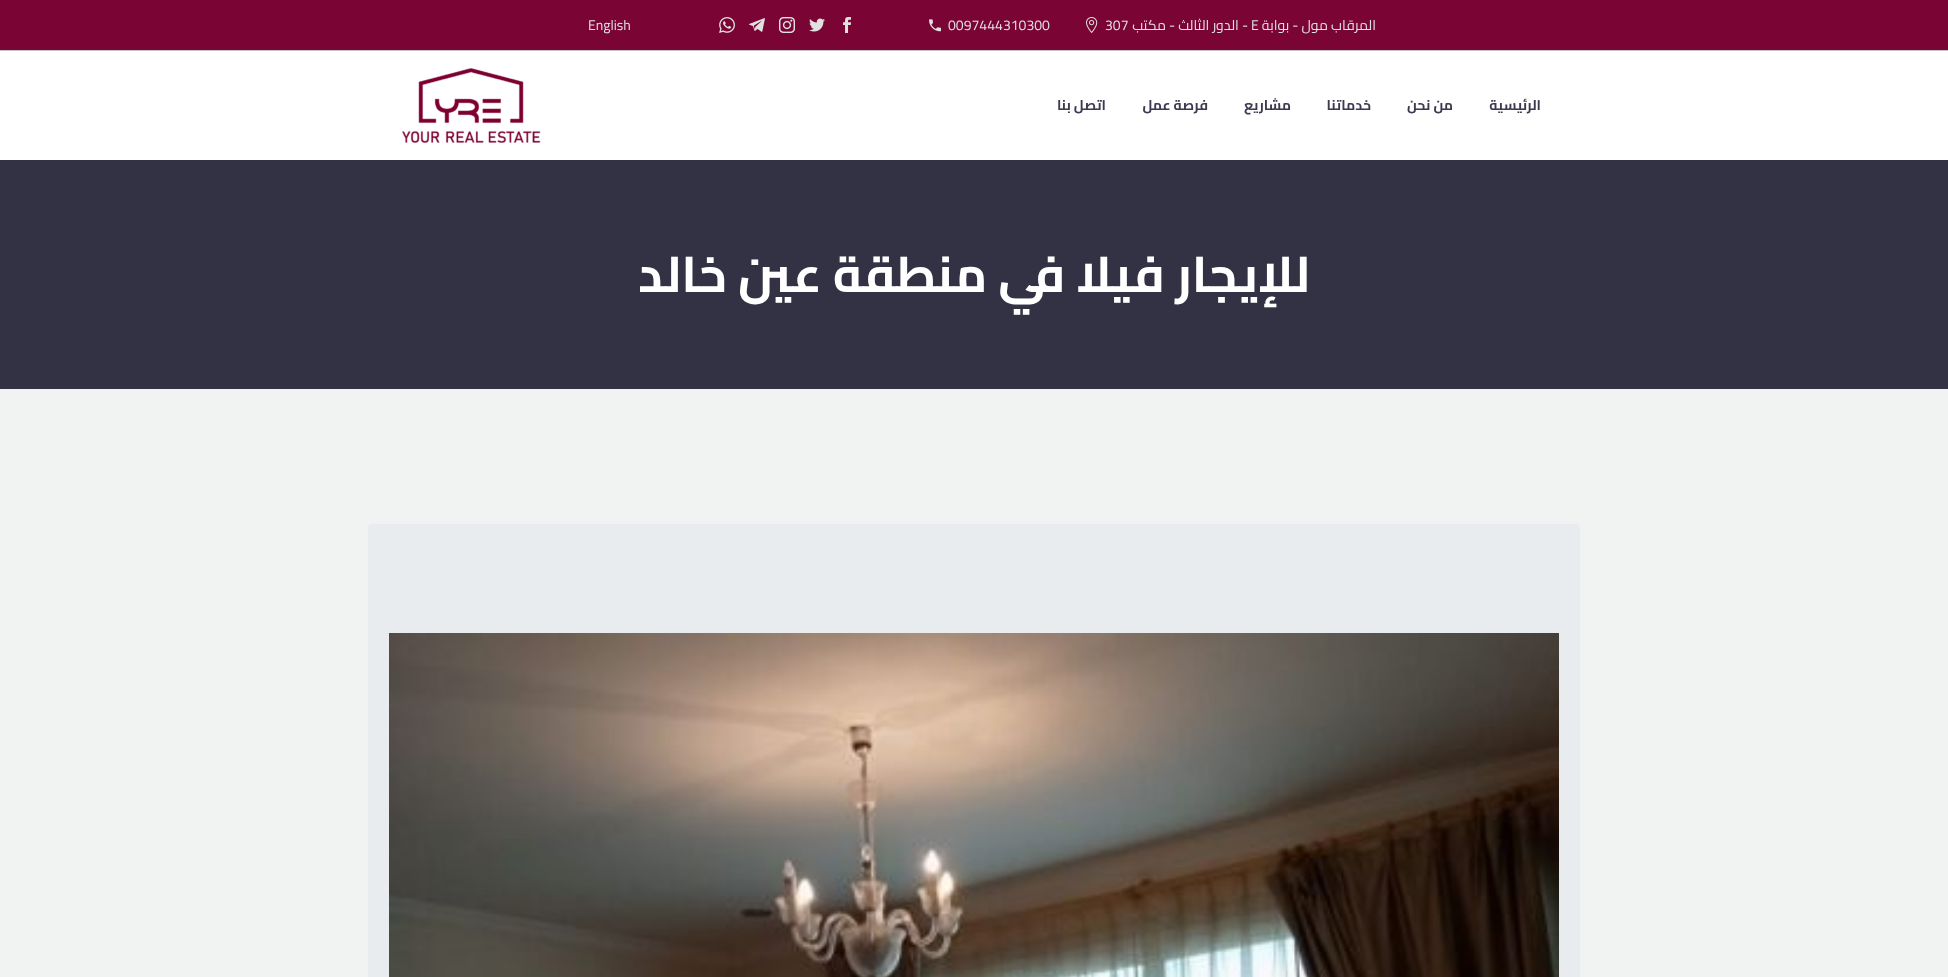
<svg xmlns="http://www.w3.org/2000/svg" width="1948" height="977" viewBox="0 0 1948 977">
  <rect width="100%" height="100%" fill="#f0f3f2"/>
  <rect x="0" y="0" width="1948" height="50" fill="#7a0433"/>
  <rect x="0" y="50" width="1948" height="1" fill="#c4c4c4"/>
  <text x="1376" y="30" font-family="Cairo" font-size="14" direction="rtl" fill="#e1e1e1">المرقاب مول - بوابة</text>
  <text x="1251" y="30" font-family="Cairo" font-size="14" fill="#e1e1e1">E</text>
  <text x="1248" y="30" font-family="Cairo" font-size="14" direction="rtl" fill="#e1e1e1">- الدور الثالث - مكتب</text>
  <text x="1105" y="30" font-family="Cairo" font-size="14" fill="#e1e1e1">307</text>
  <image x="1086" y="17" width="12" height="16" href="img1.png"/>
  <text x="948" y="30" font-family="Cairo" font-size="14" fill="#e1e1e1">0097444310300</text>
  <image x="929" y="19" width="12" height="13" href="img2.png"/>
  <image x="843" y="17" width="8" height="16" href="img3.png"/>
  <image x="809" y="18" width="16" height="14" href="img4.png"/>
  <image x="779" y="17" width="16" height="16" href="img5.png"/>
  <image x="749" y="18" width="16" height="14" href="img6.png"/>
  <image x="719" y="17" width="16" height="16" href="img7.png"/>
  <text x="588" y="30" font-family="Cairo" font-size="14" fill="#e1e1e1">English</text>
  <rect x="0" y="51" width="1948" height="109" fill="#ffffff"/>
  <text x="1541" y="110" font-family="Cairo" font-size="14" font-weight="bold" direction="rtl" fill="#3c3950">الرئيسية</text>
  <text x="1453" y="110" font-family="Cairo" font-size="14" font-weight="bold" direction="rtl" fill="#3c3950">من نحن</text>
  <text x="1371" y="110" font-family="Cairo" font-size="14" font-weight="bold" direction="rtl" fill="#3c3950">خدماتنا</text>
  <text x="1291" y="110" font-family="Cairo" font-size="14" font-weight="bold" direction="rtl" fill="#3c3950">مشاريع</text>
  <text x="1208" y="110" font-family="Cairo" font-size="14" font-weight="bold" direction="rtl" fill="#3c3950">فرصة عمل</text>
  <text x="1106" y="110" font-family="Cairo" font-size="14" font-weight="bold" direction="rtl" fill="#3c3950">اتصل بنا</text>
  <image x="402" y="68" width="139" height="76" href="img8.png"/>
  <rect x="0" y="160" width="1948" height="229" fill="#333144"/>
  <text x="1310" y="292" font-family="Cairo" font-size="50" font-weight="bold" direction="rtl" fill="#ffffff">للإيجار فيلا في منطقة عين خالد</text>
  <rect x="368" y="524" width="1212" height="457" rx="4" fill="#e8ecef"/>
  <image x="389" y="633" width="1170" height="344" href="img9.png"/>
</svg>
